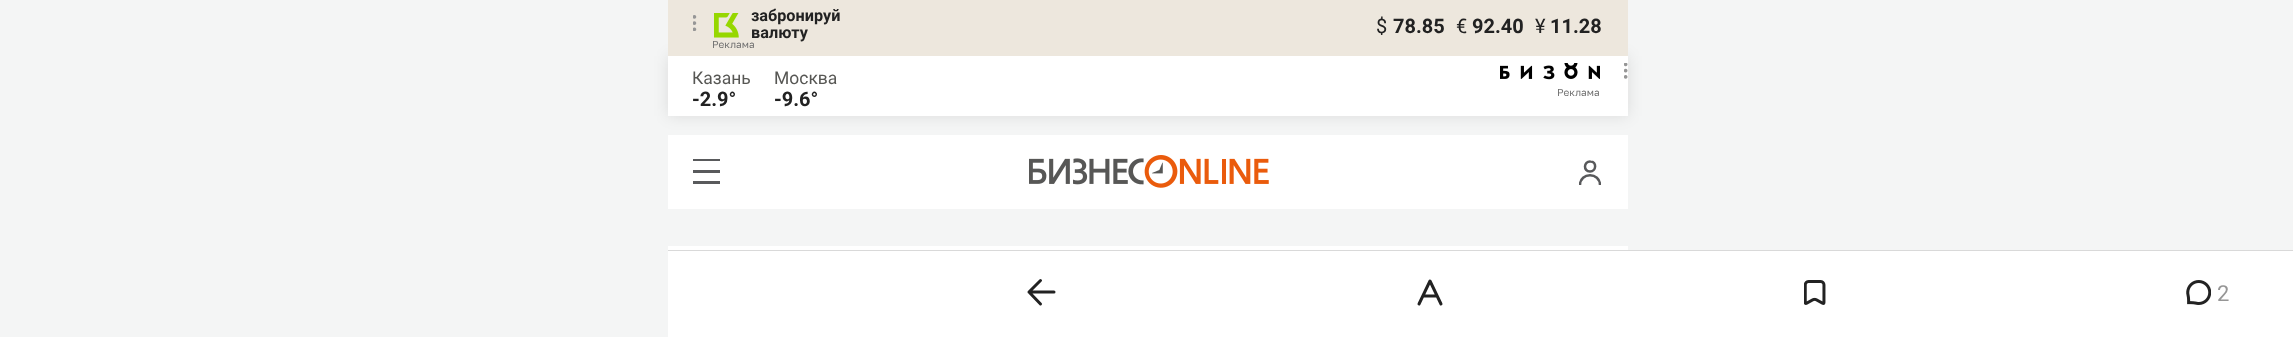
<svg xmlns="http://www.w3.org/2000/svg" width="2293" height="337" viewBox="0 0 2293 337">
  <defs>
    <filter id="blur1" x="-50%" y="-200%" width="200%" height="500%"><feGaussianBlur stdDeviation="7.5"/></filter>
    <clipPath id="clip1"><rect x="1579" y="160" width="22" height="25"/></clipPath>
  </defs>
  <rect width="100%" height="100%" fill="#f4f5f5"/>
  <rect x="668" y="56" width="960" height="60" fill="#000000" fill-opacity="0.1" filter="url(#blur1)"/>
  <rect x="668" y="0" width="960" height="56" fill="#ede7dd"/>
  <image x="693" y="15" width="4" height="16" href="img1.png"/>
  <image x="714" y="13" width="25" height="25" href="img2.png"/>
  <text x="751" y="21" font-family="Roboto" font-size="16.25" font-weight="bold" fill="#222222">забронируй</text>
  <text x="751" y="38" font-family="Roboto" font-size="16.25" font-weight="bold" fill="#222222">валюту</text>
  <text x="712" y="48" font-family="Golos" font-size="10" fill="#717171">Реклама</text>
  <text x="1376" y="33" font-family="Roboto" font-size="20" fill="#222222">$</text>
  <text x="1393" y="33" font-family="Roboto" font-size="20" font-weight="bold" fill="#222222">78.85</text>
  <text x="1456" y="33" font-family="Roboto" font-size="20" fill="#222222">€</text>
  <text x="1472" y="33" font-family="Roboto" font-size="20" font-weight="bold" fill="#222222">92.40</text>
  <text x="1535" y="33" font-family="Roboto" font-size="20" fill="#222222">¥</text>
  <text x="1550" y="33" font-family="Roboto" font-size="20" font-weight="bold" fill="#222222">11.28</text>
  <rect x="668" y="56" width="960" height="60" fill="#ffffff"/>
  <text x="692" y="84" font-family="Roboto" font-size="17.5" fill="#575754">Казань</text>
  <text x="692" y="106" font-family="Roboto" font-size="20" font-weight="bold" fill="#222222">-2.9°</text>
  <text x="774" y="84" font-family="Roboto" font-size="17.5" fill="#575754">Москва</text>
  <text x="774" y="106" font-family="Roboto" font-size="20" font-weight="bold" fill="#222222">-9.6°</text>
  <image x="1500" y="63" width="100" height="17" href="img3.png"/>
  <image x="1624" y="63" width="4" height="16" href="img4.png"/>
  <text x="1557" y="96" font-family="Golos" font-size="10" fill="#717171">Реклама</text>
  <rect x="668" y="135" width="960" height="74" fill="#ffffff"/>
  <rect x="693" y="159" width="27" height="25" fill="#595a5c"/>
  <rect x="693" y="161" width="27" height="9" fill="#ffffff"/>
  <rect x="693" y="173" width="27" height="8" fill="#ffffff"/>
  <image x="1029" y="155" width="240" height="33" href="img5.png"/>
  <g clip-path="url(#clip1)">
    <path d="M1600 185C1600 172 1580 172 1580 185" fill="none" stroke="#58595b" stroke-width="2.5"/>
  </g>
  <path d="M1590 171.5C1596.5 171.5 1597 161.5 1590.5 161.5C1583.5 161 1583 171.5 1590 171.5Z" fill="none" stroke="#58595b" stroke-width="2.5"/>
  <rect x="668" y="246" width="960" height="4" fill="#ffffff"/>
  <rect x="668" y="251" width="1625" height="86" fill="#ffffff"/>
  <rect x="668" y="250" width="1625" height="1" fill="#d9d9d9"/>
  <path d="M1040.5 280.5L1029 292L1040.5 304M1054 292H1029" fill="none" stroke="#222222" stroke-width="3" stroke-linecap="round" stroke-linejoin="round"/>
  <path d="M1419 304L1430 281L1441 304M1423 296H1437" fill="none" stroke="#222222" stroke-width="3" stroke-linecap="round" stroke-linejoin="round"/>
  <image x="1804" y="280" width="22" height="25" href="img6.png"/>
  <image x="2186" y="280" width="25" height="25" href="img7.png"/>
  <text x="2217" y="301" font-family="Roboto" font-size="22" fill="#969696">2</text>
</svg>
